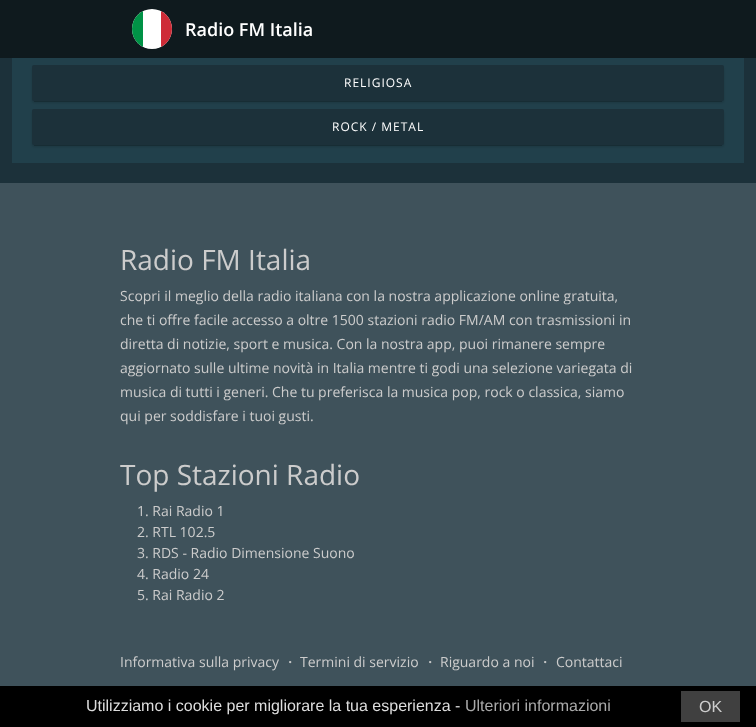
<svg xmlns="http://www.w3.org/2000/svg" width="756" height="727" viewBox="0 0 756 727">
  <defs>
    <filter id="blur1" x="-50%" y="-200%" width="200%" height="500%"><feGaussianBlur stdDeviation="0.5"/></filter>
    <clipPath id="clip1"><rect x="132" y="9" width="40" height="40" rx="20"/></clipPath>
    <filter id="blur2" x="-50%" y="-200%" width="200%" height="500%"><feGaussianBlur stdDeviation="1"/></filter>
  </defs>
  <rect width="100%" height="100%" fill="#1c313a"/>
  <rect x="12" y="58" width="732" height="105" fill="#21404b"/>
  <rect x="34" y="26" width="688" height="32" fill="#000000" fill-opacity="0.2" filter="url(#blur1)"/>
  <rect x="0" y="0" width="756" height="58" fill="#0f1a1e"/>
  <circle cx="152" cy="29" r="20" fill="#ffffff"/>
  <g clip-path="url(#clip1)">
    <rect x="132" y="11" width="11" height="36" fill="#009246"/>
    <rect x="161" y="11" width="11" height="36" fill="#ce2b37"/>
  </g>
  <text x="185" y="36" font-family="Open Sans" font-size="18" font-weight="600" fill="#ffffff">Radio FM Italia</text>
  <rect x="32" y="67" width="692" height="36" rx="2" fill="#000000" fill-opacity="0.14" filter="url(#blur2)"/>
  <rect x="34" y="70" width="688" height="32" fill="#000000" fill-opacity="0.2" filter="url(#blur1)"/>
  <rect x="32" y="65" width="692" height="36" rx="2" fill="#1c313a"/>
  <text x="344" y="87" font-family="Open Sans" font-size="12" letter-spacing="1" fill="#ffffff">RELIGIOSA</text>
  <rect x="32" y="111" width="692" height="36" rx="2" fill="#000000" fill-opacity="0.14" filter="url(#blur2)"/>
  <rect x="34" y="114" width="688" height="32" fill="#000000" fill-opacity="0.2" filter="url(#blur1)"/>
  <rect x="32" y="109" width="692" height="36" rx="2" fill="#1c313a"/>
  <text x="332" y="131" font-family="Open Sans" font-size="12" letter-spacing="1" fill="#ffffff">ROCK / METAL</text>
  <rect x="0" y="183" width="756" height="503" fill="#3f525b"/>
  <text x="120" y="270" font-family="Open Sans" font-size="28" fill="#cccccc">Radio FM Italia</text>
  <text x="120" y="301" font-family="Open Sans" font-size="14" fill="#cccccc">Scopri il meglio della radio italiana con la nostra applicazione online gratuita,</text>
  <text x="120" y="325" font-family="Open Sans" font-size="14" fill="#cccccc">che ti offre facile accesso a oltre 1500 stazioni radio FM/AM con trasmissioni in</text>
  <text x="120" y="349" font-family="Open Sans" font-size="14" fill="#cccccc">diretta di notizie, sport e musica. Con la nostra app, puoi rimanere sempre</text>
  <text x="120" y="373" font-family="Open Sans" font-size="14" fill="#cccccc">aggiornato sulle ultime novità in Italia mentre ti godi una selezione variegata di</text>
  <text x="120" y="397" font-family="Open Sans" font-size="14" fill="#cccccc">musica di tutti i generi. Che tu preferisca la musica pop, rock o classica, siamo</text>
  <text x="120" y="421" font-family="Open Sans" font-size="14" fill="#cccccc">qui per soddisfare i tuoi gusti.</text>
  <text x="120" y="485" font-family="Open Sans" font-size="28" fill="#cccccc">Top Stazioni Radio</text>
  <text x="137" y="516" font-family="Open Sans" font-size="14" fill="#cccccc">1. Rai Radio 1</text>
  <text x="137" y="537" font-family="Open Sans" font-size="14" fill="#cccccc">2. RTL 102.5</text>
  <text x="137" y="558" font-family="Open Sans" font-size="14" fill="#cccccc">3. RDS - Radio Dimensione Suono</text>
  <text x="137" y="579" font-family="Open Sans" font-size="14" fill="#cccccc">4. Radio 24</text>
  <text x="137" y="600" font-family="Open Sans" font-size="14" fill="#cccccc">5. Rai Radio 2</text>
  <text x="120" y="667" font-family="Open Sans" font-size="14" fill="#cccccc">Informativa sulla privacy</text>
  <text x="283" y="667" font-family="WenQuanYi Zen Hei" font-size="14" font-weight="500" fill="#cccccc">・</text>
  <text x="300" y="667" font-family="Open Sans" font-size="14" fill="#cccccc">Termini di servizio</text>
  <text x="423" y="667" font-family="WenQuanYi Zen Hei" font-size="14" font-weight="500" fill="#cccccc">・</text>
  <text x="440" y="667" font-family="Open Sans" font-size="14" fill="#cccccc">Riguardo a noi</text>
  <text x="538" y="667" font-family="WenQuanYi Zen Hei" font-size="14" font-weight="500" fill="#cccccc">・</text>
  <text x="556" y="667" font-family="Open Sans" font-size="14" fill="#cccccc">Contattaci</text>
  <rect x="0" y="686" width="756" height="41" fill="#000000"/>
  <text x="86" y="711" font-family="Liberation Sans" font-size="16" fill="#dddddd">Utilizziamo i cookie per migliorare la tua esperienza -</text>
  <text x="465" y="711" font-family="Liberation Sans" font-size="16" fill="#aaaaaa">Ulteriori informazioni</text>
  <rect x="681" y="691" width="59" height="31" fill="#404040"/>
  <text x="699" y="712" font-family="Liberation Sans" font-size="16" fill="#cccccc">OK</text>
</svg>
